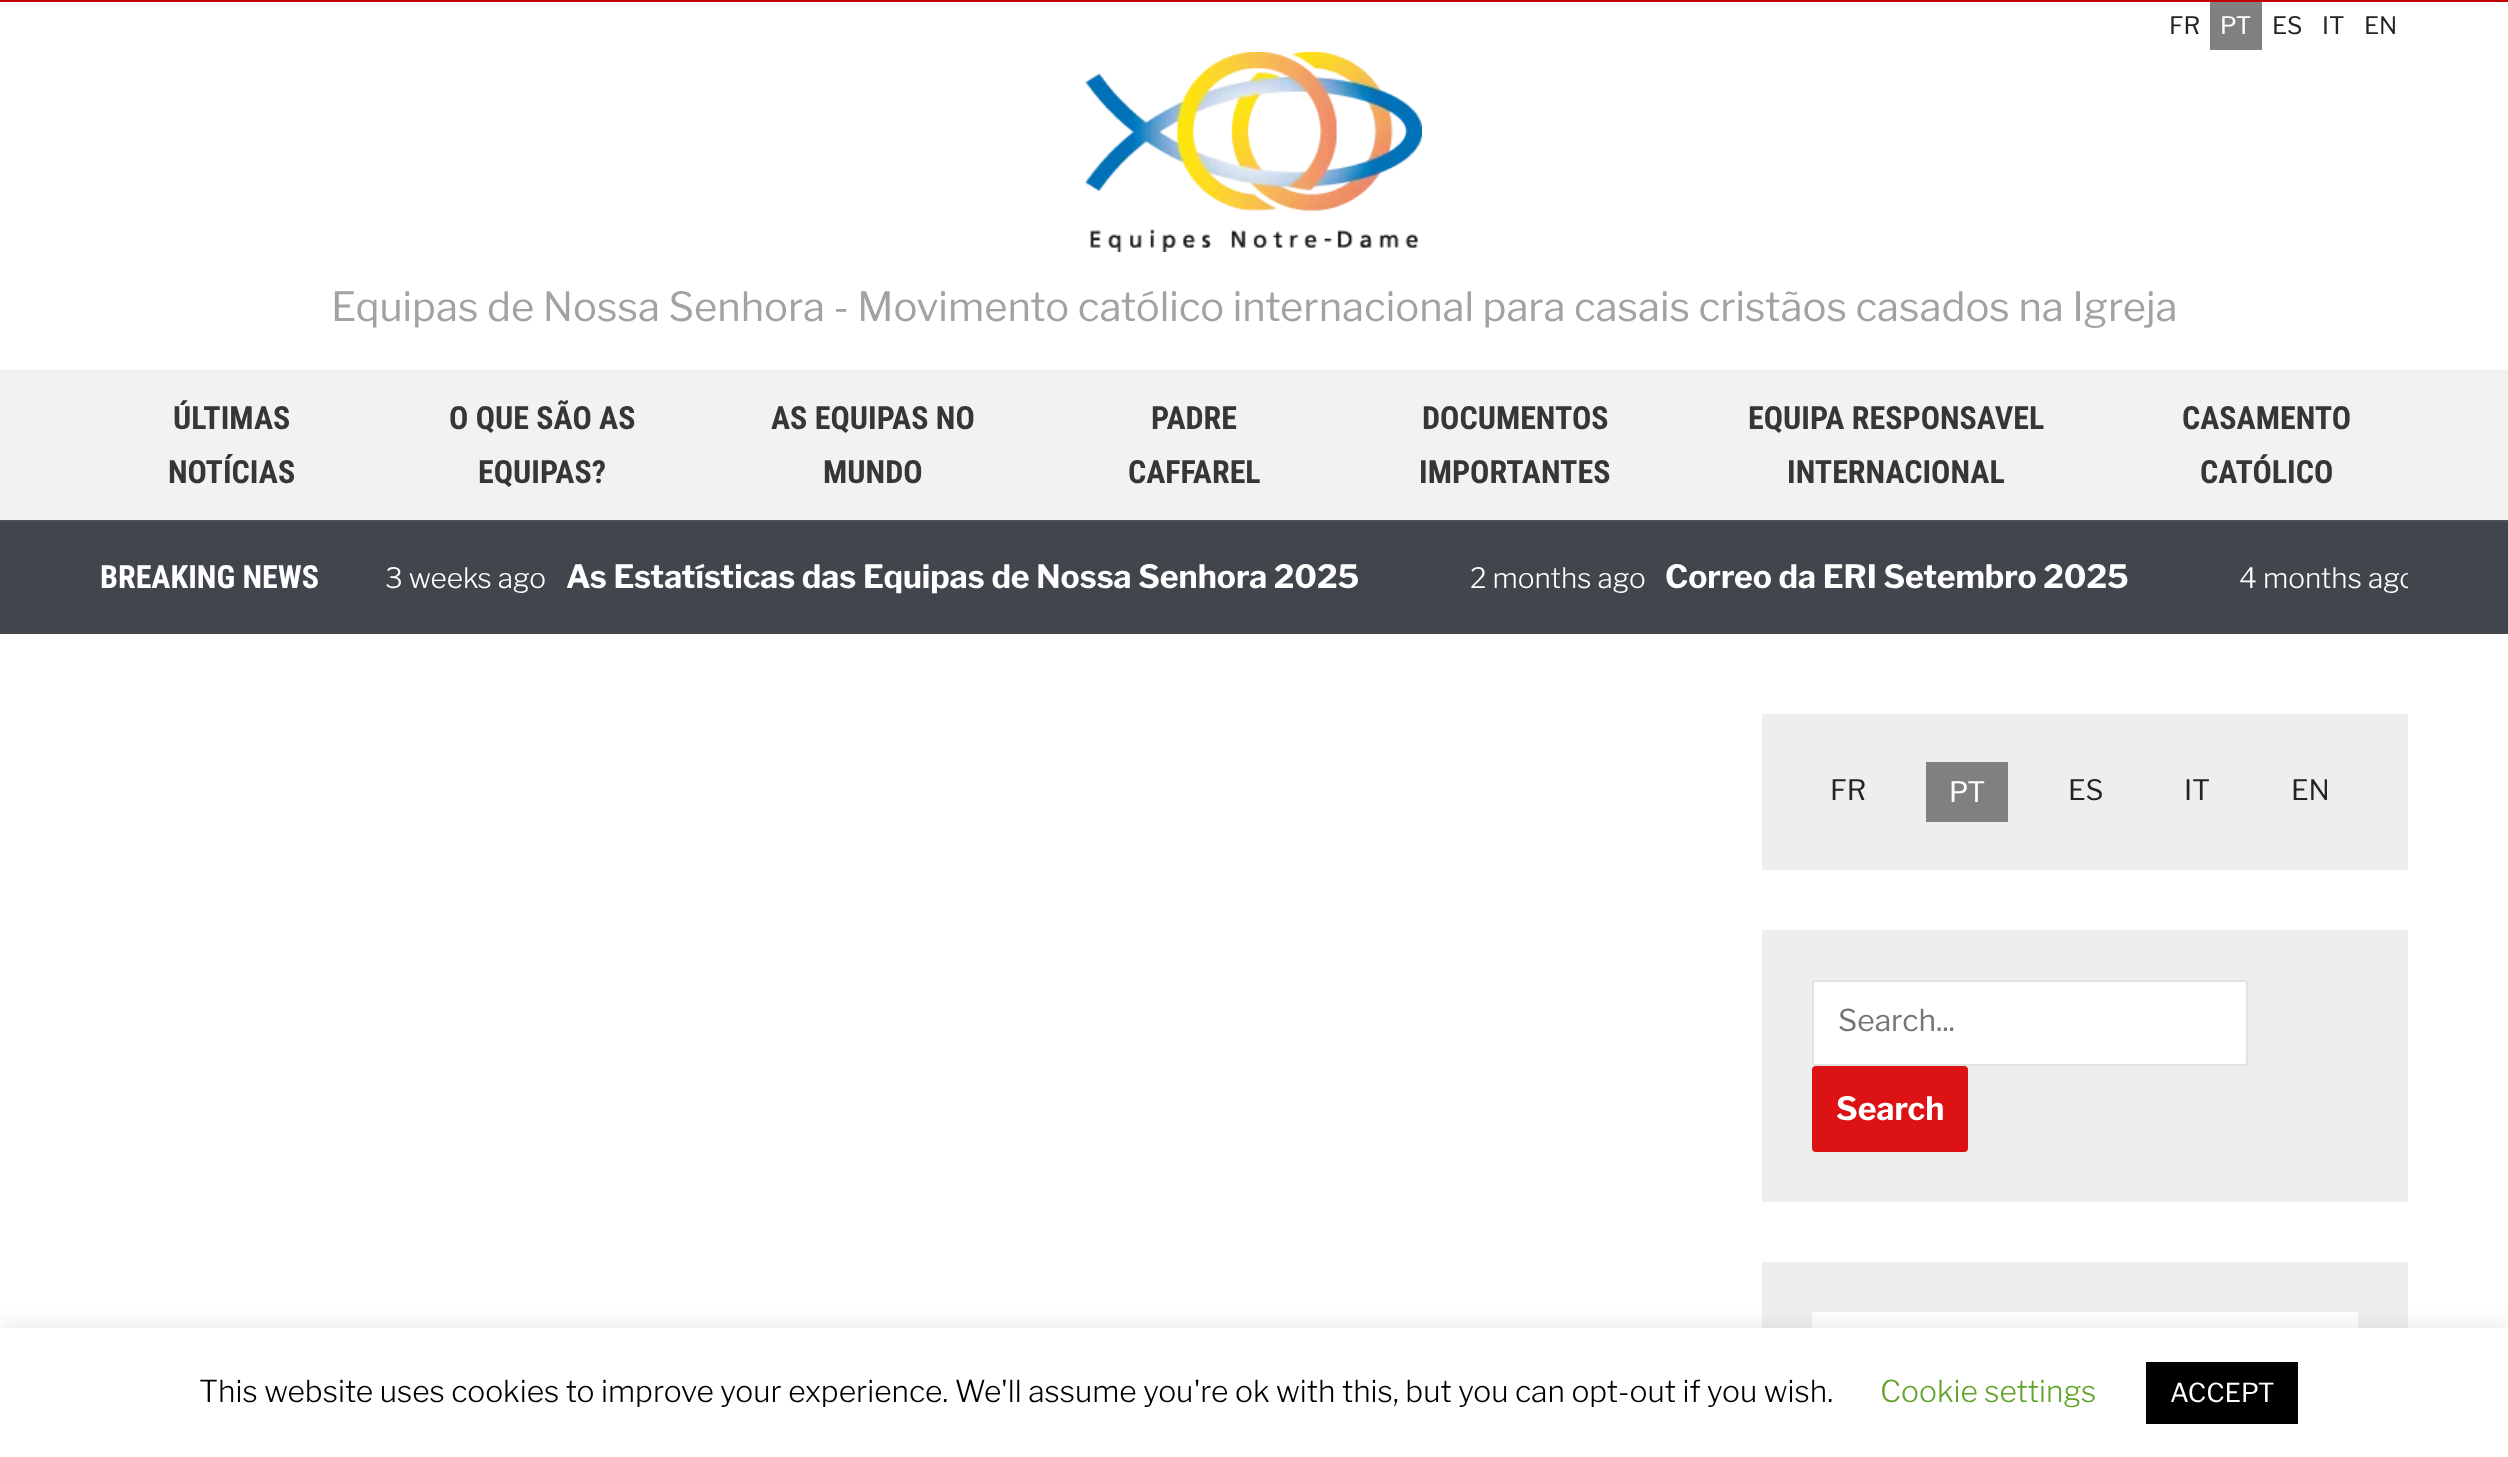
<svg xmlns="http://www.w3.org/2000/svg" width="2508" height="1457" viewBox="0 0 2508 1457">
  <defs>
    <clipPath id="clip1"><rect x="376" y="542" width="2032" height="70"/></clipPath>
    <filter id="blur1" x="-50%" y="-200%" width="200%" height="500%"><feGaussianBlur stdDeviation="10"/></filter>
  </defs>
  <rect width="100%" height="100%" fill="#ffffff"/>
  <rect x="0" y="0" width="2508" height="2" fill="#be0002"/>
  <text x="2169" y="34" font-family="Libre Franklin" font-size="24" fill="#212425">FR</text>
  <rect x="2210" y="2" width="52" height="48" fill="#808080"/>
  <text x="2220" y="34" font-family="Libre Franklin" font-size="24" fill="#ffffff">PT</text>
  <text x="2272" y="34" font-family="Libre Franklin" font-size="24" fill="#212425">ES</text>
  <text x="2322" y="34" font-family="Libre Franklin" font-size="24" fill="#212425">IT</text>
  <text x="2364" y="34" font-family="Libre Franklin" font-size="24" fill="#212425">EN</text>
  <image x="1086" y="52" width="336" height="200" href="img1.png"/>
  <text x="331" y="321" font-family="Libre Franklin" font-size="40" fill="#a2a2a2">Equipas de Nossa Senhora - Movimento católico internacional para casais cristãos casados na Igreja</text>
  <rect x="0" y="370" width="2508" height="150" fill="#f2f2f2"/>
  <text x="173" y="429" font-family="Roboto Condensed" font-size="32" font-weight="bold" fill="#343638">ÚLTIMAS</text>
  <text x="168" y="483" font-family="Roboto Condensed" font-size="32" font-weight="bold" fill="#343638">NOTÍCIAS</text>
  <text x="449" y="429" font-family="Roboto Condensed" font-size="32" font-weight="bold" fill="#343638">O QUE SÃO AS</text>
  <text x="478" y="483" font-family="Roboto Condensed" font-size="32" font-weight="bold" fill="#343638">EQUIPAS?</text>
  <text x="771" y="429" font-family="Roboto Condensed" font-size="32" font-weight="bold" fill="#343638">AS EQUIPAS NO</text>
  <text x="823" y="483" font-family="Roboto Condensed" font-size="32" font-weight="bold" fill="#343638">MUNDO</text>
  <text x="1151" y="429" font-family="Roboto Condensed" font-size="32" font-weight="bold" fill="#343638">PADRE</text>
  <text x="1128" y="483" font-family="Roboto Condensed" font-size="32" font-weight="bold" fill="#343638">CAFFAREL</text>
  <text x="1422" y="429" font-family="Roboto Condensed" font-size="32" font-weight="bold" fill="#343638">DOCUMENTOS</text>
  <text x="1419" y="483" font-family="Roboto Condensed" font-size="32" font-weight="bold" fill="#343638">IMPORTANTES</text>
  <text x="1748" y="429" font-family="Roboto Condensed" font-size="32" font-weight="bold" fill="#343638">EQUIPA RESPONSAVEL</text>
  <text x="1787" y="483" font-family="Roboto Condensed" font-size="32" font-weight="bold" fill="#343638">INTERNACIONAL</text>
  <text x="2182" y="429" font-family="Roboto Condensed" font-size="32" font-weight="bold" fill="#343638">CASAMENTO</text>
  <text x="2200" y="483" font-family="Roboto Condensed" font-size="32" font-weight="bold" fill="#343638">CATÓLICO</text>
  <rect x="0" y="522" width="2508" height="112" fill="#41454c"/>
  <rect x="0" y="520" width="2508" height="2" fill="#4b4e55"/>
  <text x="100" y="588" font-family="Roboto Condensed" font-size="32" font-weight="bold" fill="#ffffff">BREAKING NEWS</text>
  <text x="385" y="588" font-family="Libre Franklin" font-size="28" font-weight="300" fill="#ffffff">3 weeks ago</text>
  <text x="566" y="588" font-family="Libre Franklin" font-size="32" font-weight="bold" fill="#ffffff">As Estatísticas das Equipas de Nossa Senhora 2025</text>
  <text x="1470" y="588" font-family="Libre Franklin" font-size="28" font-weight="300" fill="#ffffff">2 months ago</text>
  <text x="1665" y="588" font-family="Libre Franklin" font-size="32" font-weight="bold" fill="#ffffff">Correo da ERI Setembro 2025</text>
  <g clip-path="url(#clip1)">
    <text x="2239" y="588" font-family="Libre Franklin" font-size="28" font-weight="300" fill="#ffffff">4 months ago</text>
  </g>
  <rect x="1762" y="714" width="646" height="156" fill="#eeeeee"/>
  <text x="1830" y="800" font-family="Libre Franklin" font-size="28" fill="#212425">FR</text>
  <rect x="1926" y="762" width="82" height="60" fill="#808080"/>
  <text x="1949" y="802" font-family="Libre Franklin" font-size="28" fill="#ffffff">PT</text>
  <text x="2068" y="800" font-family="Libre Franklin" font-size="28" fill="#212425">ES</text>
  <text x="2184" y="800" font-family="Libre Franklin" font-size="28" fill="#212425">IT</text>
  <text x="2291" y="800" font-family="Libre Franklin" font-size="28" fill="#212425">EN</text>
  <rect x="1762" y="930" width="646" height="272" fill="#eeeeee"/>
  <rect x="1813" y="981" width="434" height="84" rx="3" fill="#ffffff" stroke="#e2e2e2" stroke-width="2"/>
  <text x="1838" y="1031" font-family="Libre Franklin" font-size="30" fill="#757575">Search...</text>
  <rect x="1812" y="1066" width="156" height="86" rx="4" fill="#dc1214"/>
  <text x="1836" y="1120" font-family="Libre Franklin" font-size="32" font-weight="bold" fill="#ffffff">Search</text>
  <rect x="1762" y="1262" width="646" height="66" fill="#eeeeee"/>
  <image x="1812" y="1312" width="546" height="16" href="img2.png"/>
  <rect x="0" y="1326" width="2508" height="130" fill="#acabab" fill-opacity="0.3" filter="url(#blur1)"/>
  <rect x="0" y="1328" width="2508" height="129" fill="#ffffff"/>
  <text x="199" y="1402" font-family="Libre Franklin" font-size="30" font-weight="300" fill="#000000">This website uses cookies to improve your experience. We'll assume you're ok with this, but you can opt-out if you wish.</text>
  <text x="1880" y="1402" font-family="Libre Franklin" font-size="30" font-weight="300" fill="#62a329">Cookie settings</text>
  <rect x="2146" y="1362" width="152" height="62" fill="#000000"/>
  <text x="2170" y="1402" font-family="Libre Franklin" font-size="26" fill="#ffffff">ACCEPT</text>
</svg>
